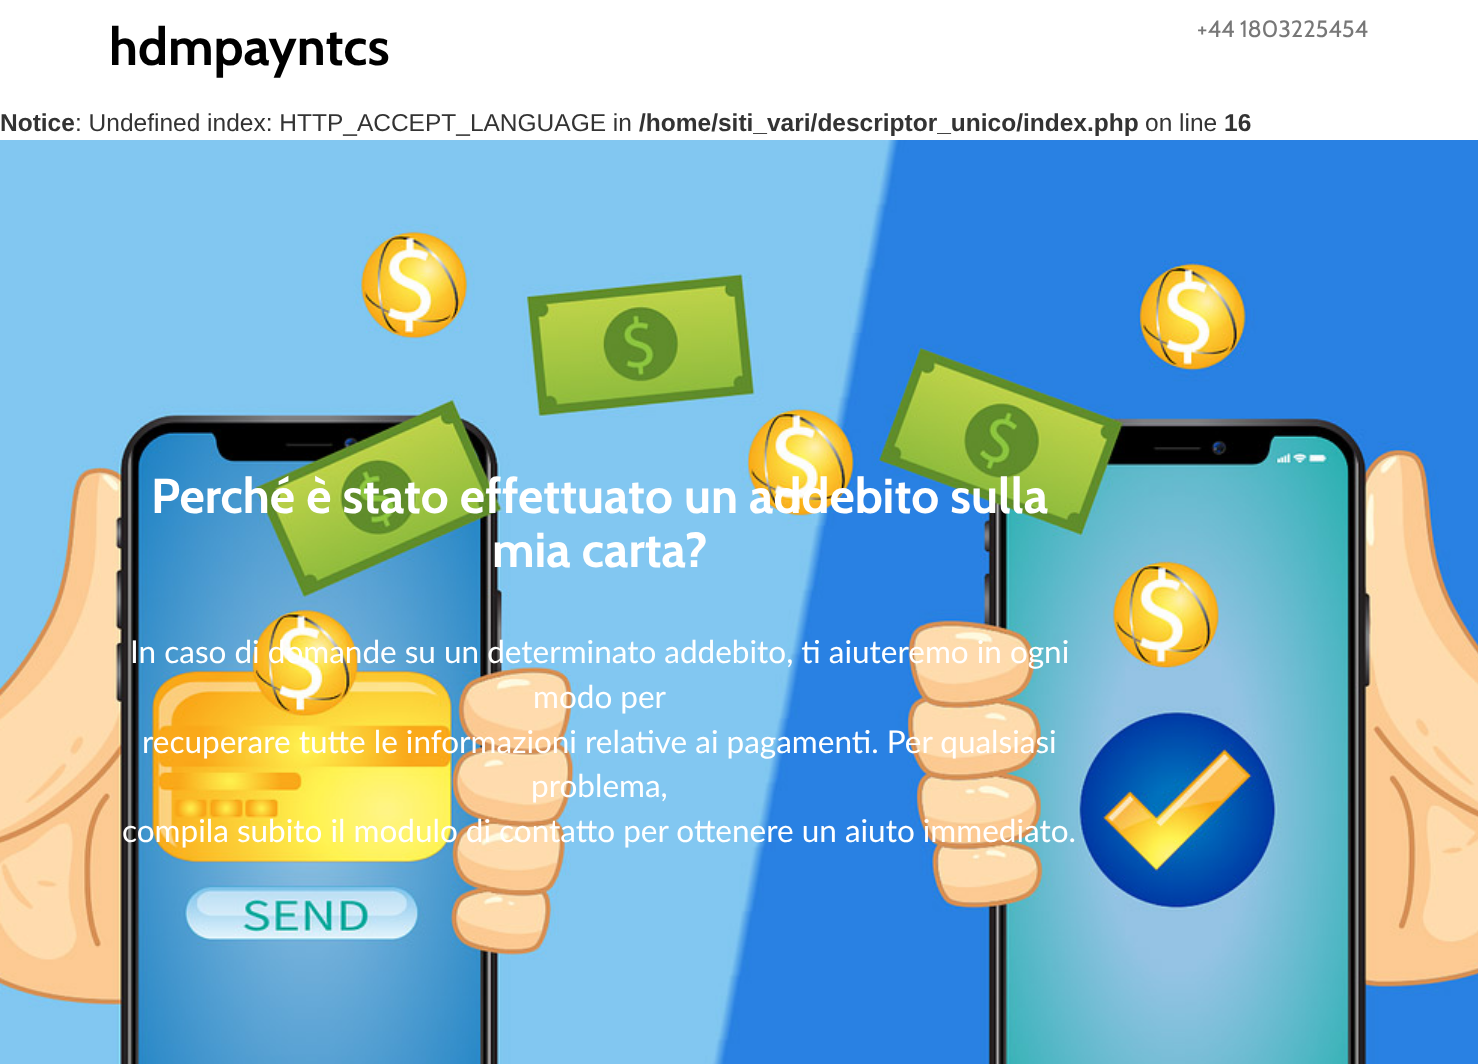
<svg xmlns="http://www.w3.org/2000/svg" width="1478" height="1064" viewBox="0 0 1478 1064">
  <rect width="100%" height="100%" fill="#ffffff"/>
  <text x="109" y="65" font-family="Cabin" font-size="52.5" font-weight="bold" fill="#000000">hdmpayntcs</text>
  <text x="1197" y="37" font-family="Cabin" font-size="23.5" fill="#777777">+44 1803225454</text>
  <text x="0" y="131" font-family="Liberation Sans" font-size="24.5" font-weight="bold" fill="#333333">Notice</text>
  <text x="75" y="131" font-family="Liberation Sans" font-size="24.5" fill="#333333">: Undefined index: HTTP_ACCEPT_LANGUAGE in</text>
  <text x="639" y="131" font-family="Liberation Sans" font-size="24.5" font-weight="bold" fill="#333333">/home/siti_vari/descriptor_unico/index.php</text>
  <text x="1145" y="131" font-family="Liberation Sans" font-size="24.5" fill="#333333">on line</text>
  <text x="1224" y="131" font-family="Liberation Sans" font-size="24.5" font-weight="bold" fill="#333333">16</text>
  <image x="0" y="140" width="1478" height="924" href="img1.png"/>
  <text x="151" y="513" font-family="Cabin" font-size="49" font-weight="bold" fill="#ffffff">Perché è stato effettuato un addebito sulla</text>
  <text x="492" y="567" font-family="Cabin" font-size="49" font-weight="bold" fill="#ffffff">mia carta?</text>
  <text x="130" y="663" font-family="Lato" font-size="31.5" fill="#ffffff">In caso di domande su un determinato addebito, ti aiuteremo in ogni</text>
  <text x="533" y="708" font-family="Lato" font-size="31.5" fill="#ffffff">modo per</text>
  <text x="142" y="753" font-family="Lato" font-size="31.5" fill="#ffffff">recuperare tutte le informazioni relative ai pagamenti. Per qualsiasi</text>
  <text x="531" y="797" font-family="Lato" font-size="31.5" fill="#ffffff">problema,</text>
  <text x="122" y="842" font-family="Lato" font-size="31.5" fill="#ffffff">compila subito il modulo di contatto per ottenere un aiuto immediato.</text>
</svg>
